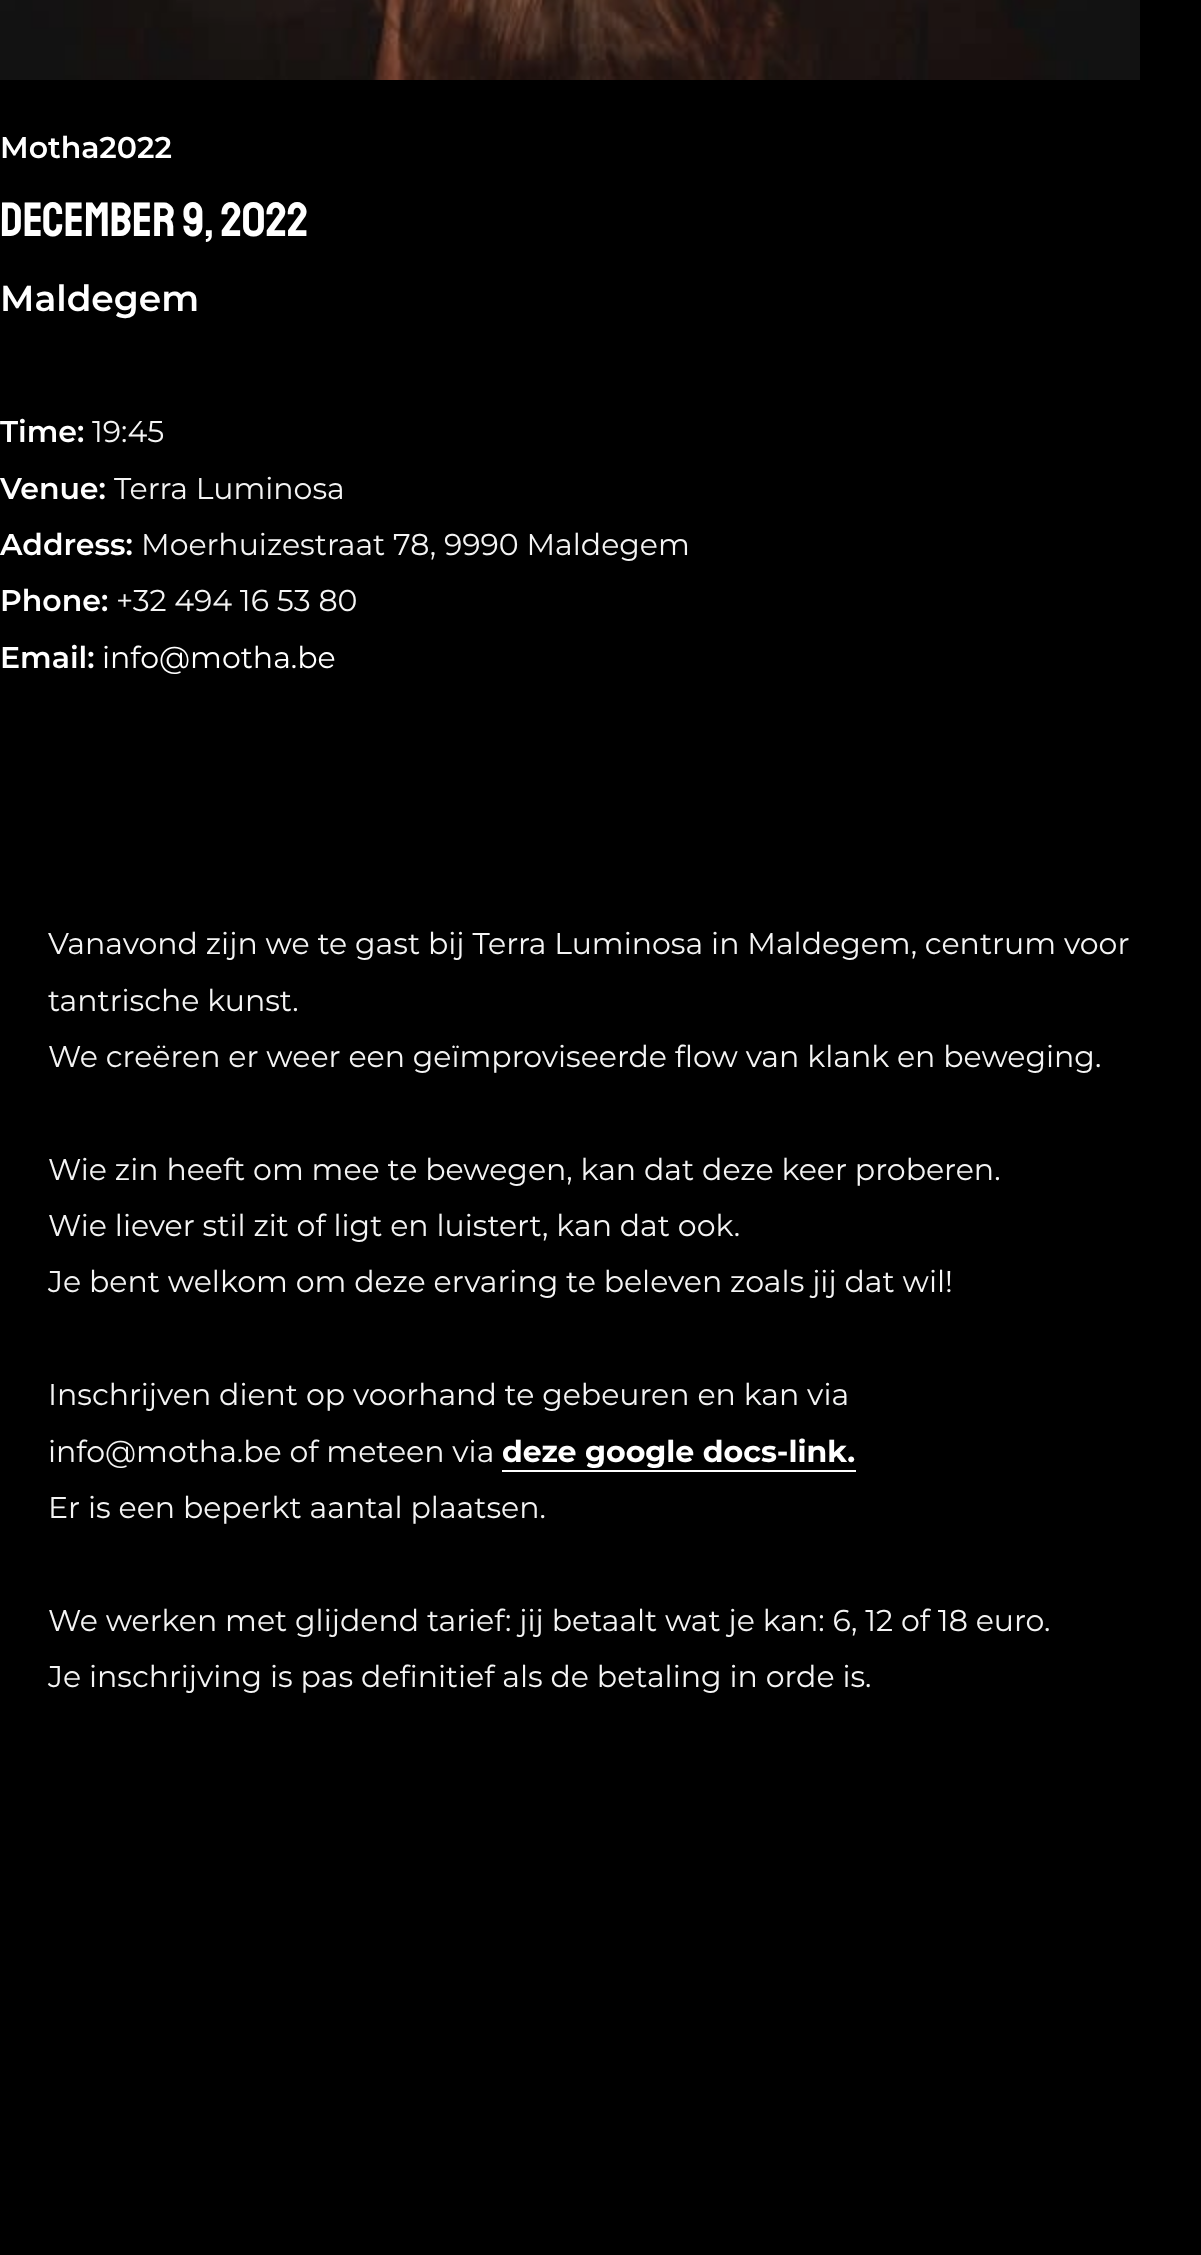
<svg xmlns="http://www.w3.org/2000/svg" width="1201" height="2255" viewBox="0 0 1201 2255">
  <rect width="100%" height="100%" fill="#000000"/>
  <image x="0" y="0" width="1140" height="80" href="img1.png"/>
  <text x="0" y="158" font-family="Montserrat" font-size="30" font-weight="600" fill="#ffffff">Motha2022</text>
  <text x="0" y="236" font-family="Staatliches" font-size="48" fill="#ffffff">December 9, 2022</text>
  <text x="0" y="311" font-family="Montserrat" font-size="36" font-weight="600" fill="#ffffff">Maldegem</text>
  <text x="0" y="442" font-family="Montserrat" font-size="30" font-weight="600" fill="#ffffff">Time:</text>
  <text x="92" y="442" font-family="Montserrat" font-size="30" fill="#f4f4f4">19:45</text>
  <text x="0" y="499" font-family="Montserrat" font-size="30" font-weight="600" fill="#ffffff">Venue:</text>
  <text x="114" y="499" font-family="Montserrat" font-size="30" fill="#f4f4f4">Terra Luminosa</text>
  <text x="0" y="555" font-family="Montserrat" font-size="30" font-weight="600" fill="#ffffff">Address:</text>
  <text x="141" y="555" font-family="Montserrat" font-size="30" fill="#f4f4f4">Moerhuizestraat 78, 9990 Maldegem</text>
  <text x="0" y="611" font-family="Montserrat" font-size="30" font-weight="600" fill="#ffffff">Phone:</text>
  <text x="116" y="611" font-family="Montserrat" font-size="30" fill="#f4f4f4">+32 494 16 53 80</text>
  <text x="0" y="668" font-family="Montserrat" font-size="30" font-weight="600" fill="#ffffff">Email:</text>
  <text x="102" y="668" font-family="Montserrat" font-size="30" fill="#ffffff">info@motha.be</text>
  <text x="48" y="954" font-family="Montserrat" font-size="30" fill="#f4f4f4">Vanavond zijn we te gast bij Terra Luminosa in Maldegem, centrum voor</text>
  <text x="48" y="1011" font-family="Montserrat" font-size="30" fill="#f4f4f4">tantrische kunst.</text>
  <text x="48" y="1067" font-family="Montserrat" font-size="30" fill="#f4f4f4">We creëren er weer een geïmproviseerde flow van klank en beweging.</text>
  <text x="48" y="1180" font-family="Montserrat" font-size="30" fill="#f4f4f4">Wie zin heeft om mee te bewegen, kan dat deze keer proberen.</text>
  <text x="48" y="1236" font-family="Montserrat" font-size="30" fill="#f4f4f4">Wie liever stil zit of ligt en luistert, kan dat ook.</text>
  <text x="48" y="1292" font-family="Montserrat" font-size="30" fill="#f4f4f4">Je bent welkom om deze ervaring te beleven zoals jij dat wil!</text>
  <text x="48" y="1405" font-family="Montserrat" font-size="30" fill="#f4f4f4">Inschrijven dient op voorhand te gebeuren en kan via</text>
  <text x="48" y="1462" font-family="Montserrat" font-size="30" fill="#f4f4f4">info@motha.be of meteen via</text>
  <text x="502" y="1462" font-family="Montserrat" font-size="30" font-weight="bold" fill="#ffffff">deze google docs-link.</text>
  <rect x="502" y="1470" width="354" height="2" fill="#ffffff"/>
  <text x="48" y="1518" font-family="Montserrat" font-size="30" fill="#f4f4f4">Er is een beperkt aantal plaatsen.</text>
  <text x="48" y="1631" font-family="Montserrat" font-size="30" fill="#f4f4f4">We werken met glijdend tarief: jij betaalt wat je kan: 6, 12 of 18 euro.</text>
  <text x="48" y="1687" font-family="Montserrat" font-size="30" fill="#f4f4f4">Je inschrijving is pas definitief als de betaling in orde is.</text>
</svg>
